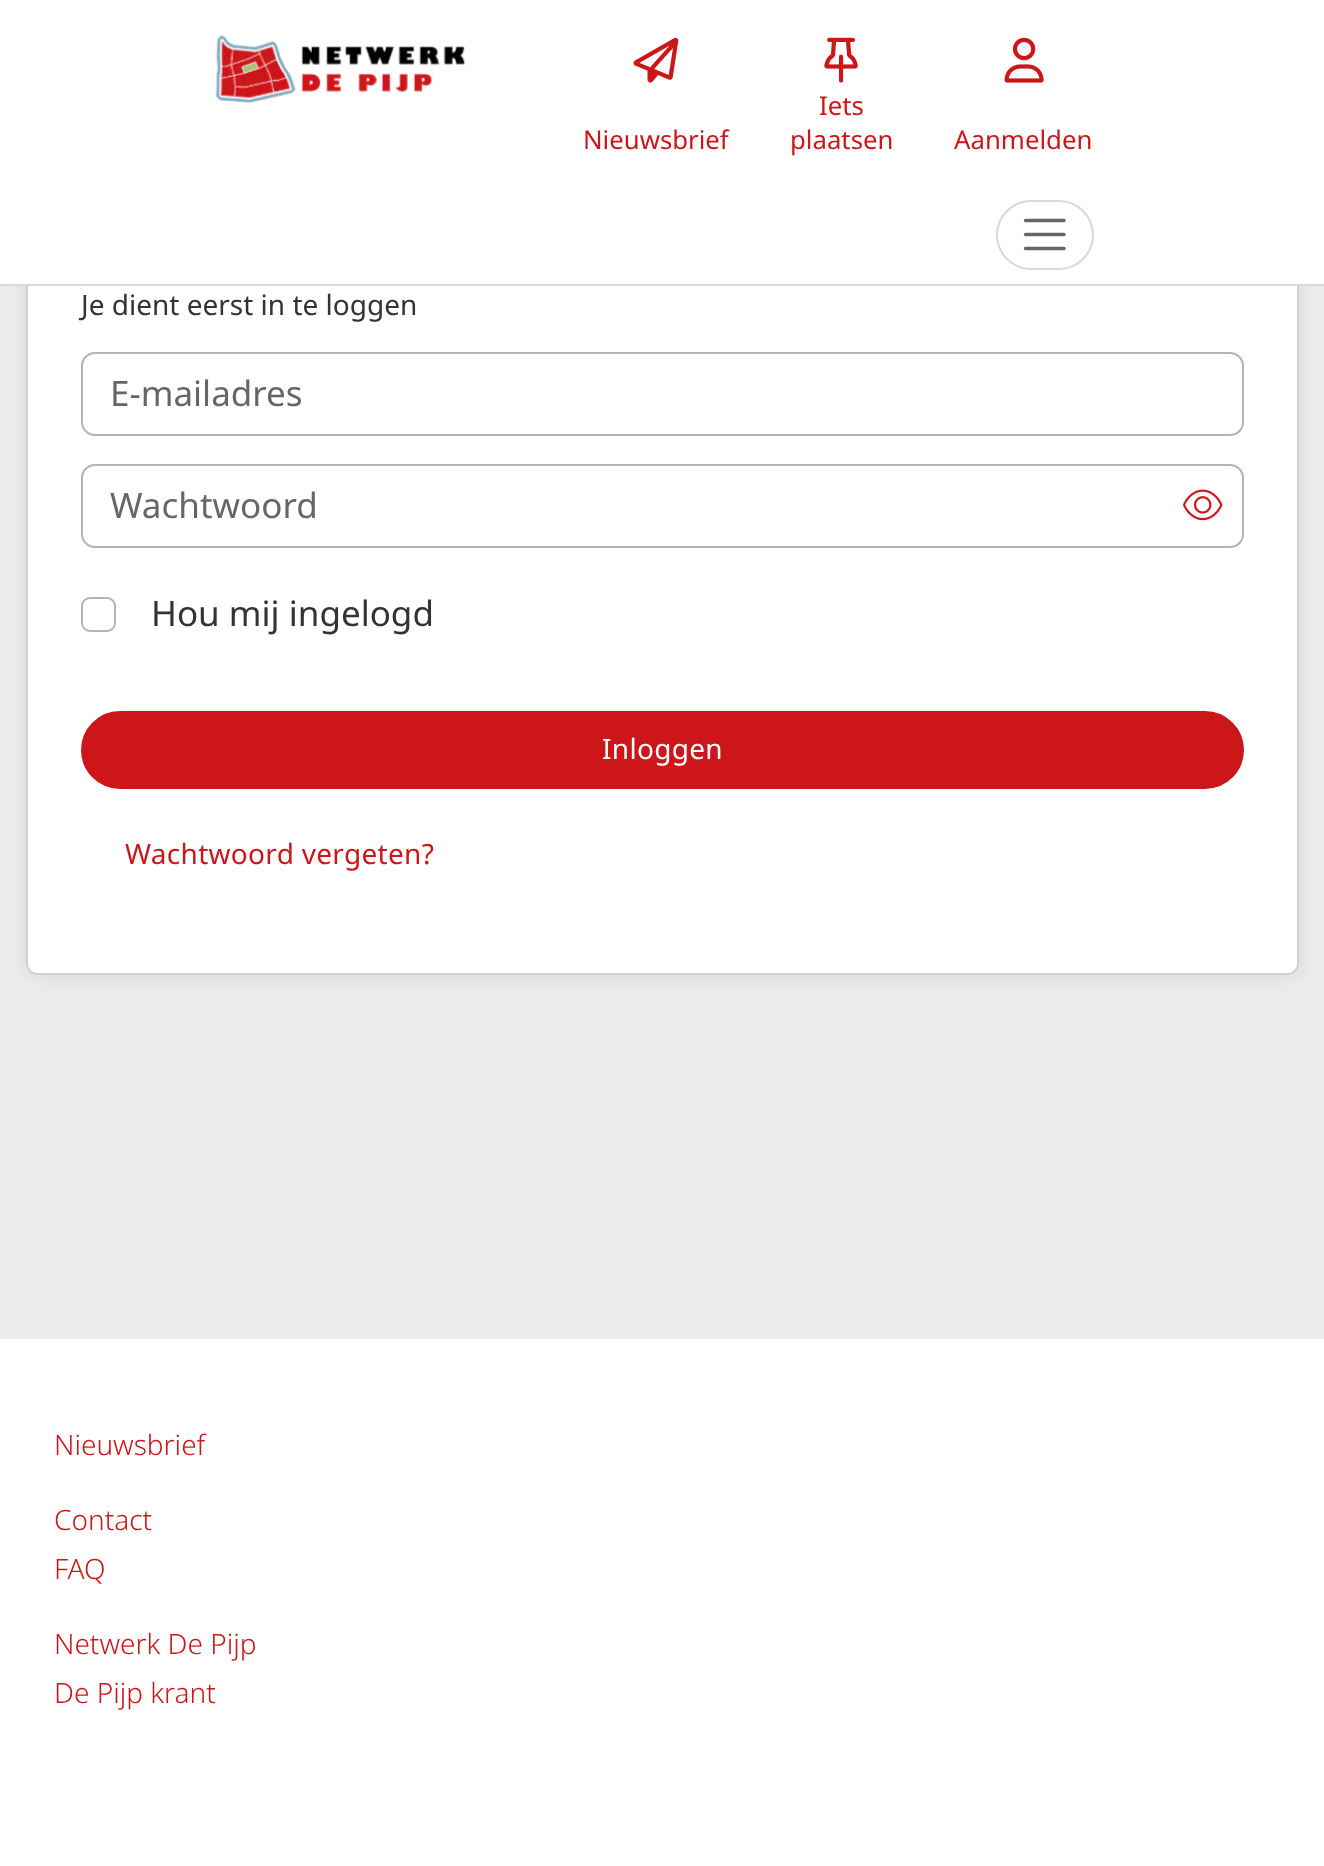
<svg xmlns="http://www.w3.org/2000/svg" width="1324" height="1866" viewBox="0 0 1324 1866">
  <defs>
    <filter id="blur1" x="-50%" y="-200%" width="200%" height="500%"><feGaussianBlur stdDeviation="9"/></filter>
  </defs>
  <rect width="100%" height="100%" fill="#ececeb"/>
  <rect x="26" y="131" width="1273" height="844" rx="11" fill="#000000" fill-opacity="0.1" filter="url(#blur1)"/>
  <rect x="26" y="131" width="1273" height="844" rx="11" fill="#ffffff"/>
  <rect x="27" y="132" width="1271" height="842" rx="10" fill="none" stroke="#000000" stroke-opacity="0.18" stroke-width="2"/>
  <rect x="0" y="0" width="1324" height="284" fill="#ffffff"/>
  <rect x="0" y="284" width="1324" height="2" fill="#d9d9d9"/>
  <image x="215" y="35" width="251" height="68" href="img1.png"/>
  <image x="633" y="37" width="46" height="46" href="img2.png"/>
  <text x="583" y="149" font-family="Noto Sans" font-size="25.75" fill="#cd161a">Nieuwsbrief</text>
  <image x="824" y="37" width="34" height="46" href="img3.png"/>
  <text x="819" y="115" font-family="Noto Sans" font-size="25.75" fill="#cd161a">Iets</text>
  <text x="790" y="149" font-family="Noto Sans" font-size="25.75" fill="#cd161a">plaatsen</text>
  <image x="1004" y="37" width="40" height="46" href="img4.png"/>
  <text x="954" y="149" font-family="Noto Sans" font-size="25.75" fill="#cd161a">Aanmelden</text>
  <rect x="997" y="201" width="96" height="68" rx="34" fill="none" stroke="#d9d9d9" stroke-width="2"/>
  <path d="M1025.5 220.5H1064M1025.5 234.5H1064M1025.5 248.5H1064" fill="none" stroke="#666666" stroke-width="3.5" stroke-linecap="round"/>
  <text x="81" y="315" font-family="Noto Sans" font-size="28" fill="#333333">Je dient eerst in te loggen</text>
  <rect x="82" y="353" width="1161" height="82" rx="13" fill="none" stroke="#adb5bd" stroke-width="2"/>
  <text x="110" y="406" font-family="Noto Sans" font-size="35" fill="#666666">E-mailadres</text>
  <rect x="82" y="465" width="1161" height="82" rx="13" fill="none" stroke="#adb5bd" stroke-width="2"/>
  <text x="110" y="518" font-family="Noto Sans" font-size="35" fill="#666666">Wachtwoord</text>
  <image x="1183" y="489" width="40" height="32" href="img5.png"/>
  <rect x="82" y="598" width="33" height="33" rx="8" fill="none" stroke="#adb5bd" stroke-width="2"/>
  <text x="151" y="626" font-family="Noto Sans" font-size="35" fill="#333333">Hou mij ingelogd</text>
  <rect x="82" y="712" width="1161" height="76" rx="38" fill="#cd161a" stroke="#cd161a" stroke-width="2"/>
  <text x="602" y="759" font-family="Noto Sans" font-size="28" letter-spacing="0.3" fill="#ffffff">Inloggen</text>
  <text x="125" y="864" font-family="Noto Sans" font-size="28" letter-spacing="0.3" fill="#cd161a">Wachtwoord vergeten?</text>
  <rect x="0" y="1339" width="1324" height="527" fill="#ffffff"/>
  <text x="54" y="1455" font-family="Noto Sans" font-size="28" font-weight="300" fill="#cd161a">Nieuwsbrief</text>
  <text x="54" y="1530" font-family="Noto Sans" font-size="28" font-weight="300" fill="#cd161a">Contact</text>
  <text x="54" y="1579" font-family="Noto Sans" font-size="28" font-weight="300" fill="#cd161a">FAQ</text>
  <text x="54" y="1654" font-family="Noto Sans" font-size="28" font-weight="300" fill="#cd161a">Netwerk De Pijp</text>
  <text x="54" y="1703" font-family="Noto Sans" font-size="28" font-weight="300" fill="#cd161a">De Pijp krant</text>
</svg>
